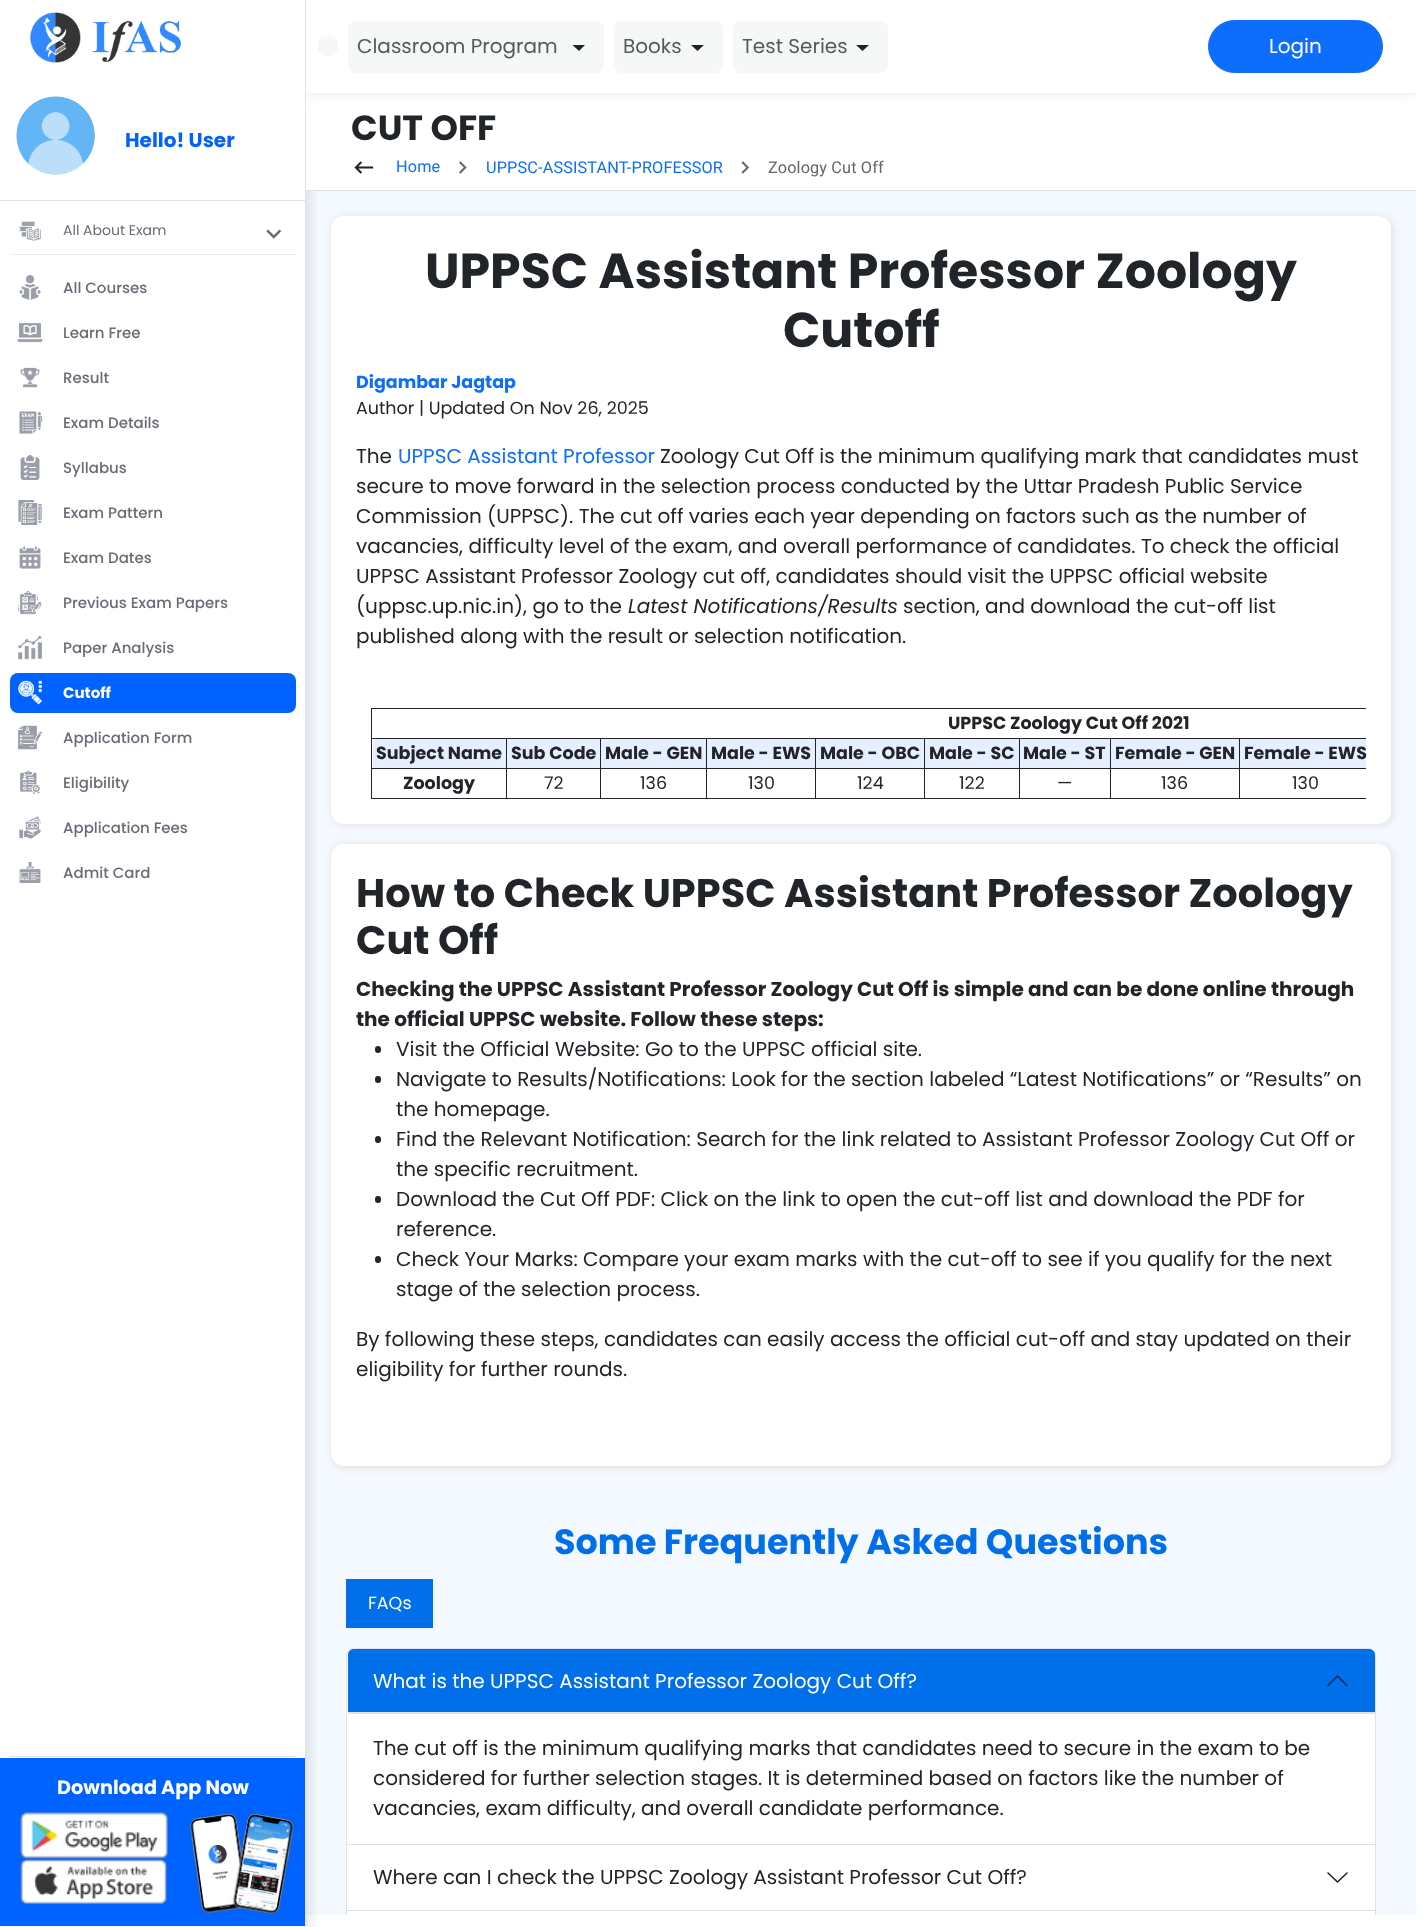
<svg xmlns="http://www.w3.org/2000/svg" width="1422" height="1927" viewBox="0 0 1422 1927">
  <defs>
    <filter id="blur1" x="-50%" y="-200%" width="200%" height="500%"><feGaussianBlur stdDeviation="3"/></filter>
    <clipPath id="clip1"><rect x="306" y="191" width="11" height="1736"/></clipPath>
    <filter id="blur2" x="-50%" y="-200%" width="200%" height="500%"><feGaussianBlur stdDeviation="10"/></filter>
    <clipPath id="clip2"><rect x="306" y="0" width="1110" height="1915"/></clipPath>
    <filter id="blur3" x="-50%" y="-200%" width="200%" height="500%"><feGaussianBlur stdDeviation="6"/></filter>
  </defs>
  <rect width="100%" height="100%" fill="#ffffff"/>
  <rect x="306" y="191" width="1110" height="1724" fill="#f4f8ff"/>
  <rect x="331" y="216" width="1063" height="610" rx="14" fill="#e5e5e5" filter="url(#blur1)"/>
  <rect x="331" y="216" width="1060" height="608" rx="13" fill="#ffffff"/>
  <rect x="331" y="844" width="1063" height="625" rx="14" fill="#e5e5e5" filter="url(#blur1)"/>
  <rect x="331" y="844" width="1060" height="622" rx="13" fill="#ffffff"/>
  <g clip-path="url(#clip1)">
    <rect x="0" y="10" width="306" height="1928" fill="#000000" fill-opacity="0.15" filter="url(#blur2)"/>
  </g>
  <rect x="305" y="0" width="1" height="1927" fill="#dee2e6"/>
  <image x="30" y="12" width="151" height="51" href="img1.png"/>
  <rect x="0" y="200" width="305" height="1" fill="#dee2e6"/>
  <image x="16" y="96" width="79" height="79" href="img2.png"/>
  <text x="125" y="147" font-family="Poppins" font-size="20" font-weight="bold" fill="#0062ff">Hello! User</text>
  <rect x="11" y="254" width="285" height="1" fill="#e9ecef"/>
  <image x="19" y="221" width="22" height="20" href="img3.png"/>
  <text x="63" y="235" font-family="Poppins" font-size="14" fill="#676c76">All About Exam</text>
  <image x="266" y="229" width="16" height="10" href="img4.png"/>
  <rect x="10" y="1756" width="286" height="1" fill="#dee2e6"/>
  <image x="19" y="275" width="22" height="25" href="img5.png"/>
  <text x="63" y="293" font-family="Poppins" font-size="15" font-weight="500" fill="#676c76">All Courses</text>
  <image x="17" y="323" width="26" height="20" href="img6.png"/>
  <text x="63" y="338" font-family="Poppins" font-size="15" font-weight="500" fill="#676c76">Learn Free</text>
  <image x="20" y="367" width="20" height="21" href="img7.png"/>
  <text x="63" y="383" font-family="Poppins" font-size="15" font-weight="500" fill="#676c76">Result</text>
  <image x="19" y="411" width="24" height="23" href="img8.png"/>
  <text x="63" y="428" font-family="Poppins" font-size="15" font-weight="500" fill="#676c76">Exam Details</text>
  <image x="20" y="455" width="20" height="25" href="img9.png"/>
  <text x="63" y="473" font-family="Poppins" font-size="15" font-weight="500" fill="#676c76">Syllabus</text>
  <image x="18" y="500" width="24" height="25" href="img10.png"/>
  <text x="63" y="518" font-family="Poppins" font-size="15" font-weight="500" fill="#676c76">Exam Pattern</text>
  <image x="19" y="546" width="22" height="23" href="img11.png"/>
  <text x="63" y="563" font-family="Poppins" font-size="15" font-weight="500" fill="#676c76">Exam Dates</text>
  <image x="18" y="590" width="24" height="25" href="img12.png"/>
  <text x="63" y="608" font-family="Poppins" font-size="15" font-weight="500" fill="#676c76">Previous Exam Papers</text>
  <image x="18" y="635" width="24" height="25" href="img13.png"/>
  <text x="63" y="653" font-family="Poppins" font-size="15" font-weight="500" fill="#676c76">Paper Analysis</text>
  <rect x="10" y="673" width="286" height="40" rx="8" fill="#0062ff"/>
  <image x="18" y="680" width="24" height="25" href="img14.png"/>
  <text x="63" y="698" font-family="Poppins" font-size="15" font-weight="bold" fill="#ffffff">Cutoff</text>
  <image x="18" y="725" width="24" height="25" href="img15.png"/>
  <text x="63" y="743" font-family="Poppins" font-size="15" font-weight="500" fill="#676c76">Application Form</text>
  <image x="20" y="770" width="20" height="25" href="img16.png"/>
  <text x="63" y="788" font-family="Poppins" font-size="15" font-weight="500" fill="#676c76">Eligibility</text>
  <image x="19" y="816" width="22" height="23" href="img17.png"/>
  <text x="63" y="833" font-family="Poppins" font-size="15" font-weight="500" fill="#676c76">Application Fees</text>
  <image x="19" y="862" width="22" height="21" href="img18.png"/>
  <text x="63" y="878" font-family="Poppins" font-size="15" font-weight="500" fill="#676c76">Admit Card</text>
  <rect x="0" y="1758" width="305" height="168" fill="#0062ff"/>
  <text x="57" y="1794" font-family="'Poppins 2'" font-size="19.25" font-weight="bold" fill="#ffffff">Download App Now</text>
  <image x="20" y="1812" width="148" height="47" href="img19.png"/>
  <image x="20" y="1858" width="147" height="46" href="img20.png"/>
  <image x="189" y="1812" width="106" height="103" href="img21.png"/>
  <rect x="306" y="93" width="15" height="97" fill="#ffffff"/>
  <g clip-path="url(#clip2)">
    <rect x="306" y="0" width="1110" height="93" fill="#e5e5e5" filter="url(#blur3)"/>
  </g>
  <rect x="306" y="0" width="1110" height="93" fill="#ffffff"/>
  <rect x="318" y="36" width="20" height="20" rx="8" fill="#f6f7f7"/>
  <rect x="348" y="21" width="256" height="52" rx="8" fill="#f6f7f7"/>
  <text x="357" y="53" font-family="Poppins" font-size="20" fill="#565a5d">Classroom Program</text>
  <path d="M572.5 45L579 51L585 45Z" fill="#212529"/>
  <rect x="614" y="21" width="109" height="52" rx="8" fill="#f6f7f7"/>
  <text x="623" y="53" font-family="Poppins" font-size="20" fill="#565a5d">Books</text>
  <path d="M691 45L697.5 51L704 45Z" fill="#212529"/>
  <rect x="733" y="21" width="155" height="52" rx="8" fill="#f6f7f7"/>
  <text x="742" y="53" font-family="Poppins" font-size="20" fill="#565a5d">Test Series</text>
  <path d="M856 45L862.5 51L869 45Z" fill="#212529"/>
  <rect x="1208.5" y="20.5" width="174" height="52" rx="26" fill="#0d6efd" stroke="#0d6efd"/>
  <text x="1269" y="53" font-family="Poppins" font-size="20" fill="#ffffff">Login</text>
  <rect x="306" y="190" width="1110" height="1" fill="#dee2e6"/>
  <text x="351" y="140" font-family="Poppins" font-size="35" font-weight="bold" fill="#212529">CUT OFF</text>
  <image x="354" y="161" width="20" height="13" href="img22.png"/>
  <text x="396" y="172" font-family="Roboto" font-size="16.25" letter-spacing="0.15" fill="#0d6efd">Home</text>
  <image x="459" y="161" width="8" height="13" href="img23.png"/>
  <text x="486" y="173" font-family="Roboto" font-size="16.25" letter-spacing="0.15" fill="#0d6efd">UPPSC-ASSISTANT-PROFESSOR</text>
  <image x="741" y="161" width="8" height="13" href="img24.png"/>
  <text x="768" y="173" font-family="Roboto" font-size="16.25" letter-spacing="0.15" fill="#666666">Zoology Cut Off</text>
  <text x="425" y="288" font-family="Poppins" font-size="49" font-weight="bold" fill="#212529">UPPSC Assistant Professor Zoology</text>
  <text x="783" y="347" font-family="Poppins" font-size="49" font-weight="bold" fill="#212529">Cutoff</text>
  <text x="356" y="388" font-family="Poppins" font-size="17.5" font-weight="bold" fill="#0d6efd">Digambar Jagtap</text>
  <text x="356" y="414" font-family="Poppins" font-size="17.5" fill="#212529">Author | Updated On Nov 26, 2025</text>
  <text x="356" y="463" font-family="Poppins" font-size="20" fill="#212529">The</text>
  <text x="398" y="463" font-family="Poppins" font-size="20" fill="#0d6efd">UPPSC Assistant Professor</text>
  <text x="660" y="463" font-family="Poppins" font-size="20" fill="#212529">Zoology Cut Off is the minimum qualifying mark that candidates must</text>
  <text x="356" y="493" font-family="Poppins" font-size="20" fill="#212529">secure to move forward in the selection process conducted by the Uttar Pradesh Public Service</text>
  <text x="356" y="523" font-family="Poppins" font-size="20" fill="#212529">Commission (UPPSC). The cut off varies each year depending on factors such as the number of</text>
  <text x="356" y="553" font-family="Poppins" font-size="20" fill="#212529">vacancies, difficulty level of the exam, and overall performance of candidates. To check the official</text>
  <text x="356" y="583" font-family="Poppins" font-size="20" fill="#212529">UPPSC Assistant Professor Zoology cut off, candidates should visit the UPPSC official website</text>
  <text x="356" y="613" font-family="Poppins" font-size="20" fill="#212529">(uppsc.up.nic.in), go to the</text>
  <text x="628" y="613" font-family="Poppins" font-size="20" font-style="italic" fill="#212529">Latest Notifications/Results</text>
  <text x="903" y="613" font-family="Poppins" font-size="20" fill="#212529">section, and download the cut-off list</text>
  <text x="356" y="643" font-family="Poppins" font-size="20" fill="#212529">published along with the result or selection notification.</text>
  <rect x="371" y="708" width="995" height="1" fill="#212529"/>
  <rect x="371" y="798" width="995" height="1" fill="#212529"/>
  <rect x="371" y="708" width="1" height="91" fill="#212529"/>
  <text x="948" y="729" font-family="Poppins" font-size="17.5" font-weight="bold" fill="#212529">UPPSC Zoology Cut Off 2021</text>
  <rect x="373" y="739" width="993" height="29" fill="#e5efff"/>
  <rect x="371" y="738" width="995" height="1" fill="#212529"/>
  <text x="376" y="759" font-family="Poppins" font-size="17.5" font-weight="bold" fill="#212529">Subject Name</text>
  <text x="511" y="759" font-family="Poppins" font-size="17.5" font-weight="bold" fill="#212529">Sub Code</text>
  <text x="605" y="759" font-family="Poppins" font-size="17.5" font-weight="bold" fill="#212529">Male - GEN</text>
  <text x="711" y="759" font-family="Poppins" font-size="17.5" font-weight="bold" fill="#212529">Male - EWS</text>
  <text x="820" y="759" font-family="Poppins" font-size="17.5" font-weight="bold" fill="#212529">Male - OBC</text>
  <text x="929" y="759" font-family="Poppins" font-size="17.5" font-weight="bold" fill="#212529">Male - SC</text>
  <text x="1023" y="759" font-family="Poppins" font-size="17.5" font-weight="bold" fill="#212529">Male - ST</text>
  <text x="1115" y="759" font-family="Poppins" font-size="17.5" font-weight="bold" fill="#212529">Female - GEN</text>
  <text x="1244" y="759" font-family="Poppins" font-size="17.5" font-weight="bold" fill="#212529">Female - EWS</text>
  <rect x="371" y="768" width="995" height="1" fill="#212529"/>
  <text x="403" y="789" font-family="Poppins" font-size="17.5" font-weight="bold" fill="#212529">Zoology</text>
  <rect x="506" y="738" width="1" height="61" fill="#212529"/>
  <text x="544" y="789" font-family="Poppins" font-size="17.5" fill="#212529">72</text>
  <rect x="600" y="738" width="1" height="61" fill="#212529"/>
  <text x="640" y="789" font-family="Poppins" font-size="17.5" fill="#212529">136</text>
  <rect x="706" y="738" width="1" height="61" fill="#212529"/>
  <text x="748" y="789" font-family="Poppins" font-size="17.5" fill="#212529">130</text>
  <rect x="815" y="738" width="1" height="61" fill="#212529"/>
  <text x="857" y="789" font-family="Poppins" font-size="17.5" fill="#212529">124</text>
  <rect x="924" y="738" width="1" height="61" fill="#212529"/>
  <text x="959" y="789" font-family="Poppins" font-size="17.5" fill="#212529">122</text>
  <rect x="1019" y="738" width="1" height="61" fill="#212529"/>
  <text x="1057" y="789" font-family="Poppins" font-size="17.5" fill="#212529">—</text>
  <rect x="1110" y="738" width="1" height="61" fill="#212529"/>
  <text x="1161" y="789" font-family="Poppins" font-size="17.5" fill="#212529">136</text>
  <rect x="1239" y="738" width="1" height="61" fill="#212529"/>
  <text x="1292" y="789" font-family="Poppins" font-size="17.5" fill="#212529">130</text>
  <text x="356" y="907" font-family="Poppins" font-size="39.9" font-weight="bold" fill="#212529">How to Check UPPSC Assistant Professor Zoology</text>
  <text x="356" y="954" font-family="Poppins" font-size="39.9" font-weight="bold" fill="#212529">Cut Off</text>
  <text x="356" y="996" font-family="Poppins" font-size="20" font-weight="bold" fill="#212529">Checking the UPPSC Assistant Professor Zoology Cut Off is simple and can be done online through</text>
  <text x="356" y="1026" font-family="Poppins" font-size="20" font-weight="bold" fill="#212529">the official UPPSC website. Follow these steps:</text>
  <rect x="375" y="1046" width="6" height="7" rx="3" fill="#212529"/>
  <text x="396" y="1056" font-family="Poppins" font-size="20" fill="#212529">Visit the Official Website: Go to the UPPSC official site.</text>
  <rect x="375" y="1076" width="6" height="7" rx="3" fill="#212529"/>
  <text x="396" y="1086" font-family="Poppins" font-size="20" fill="#212529">Navigate to Results/Notifications: Look for the section labeled “Latest Notifications” or “Results” on</text>
  <text x="396" y="1116" font-family="Poppins" font-size="20" fill="#212529">the homepage.</text>
  <rect x="375" y="1136" width="6" height="7" rx="3" fill="#212529"/>
  <text x="396" y="1146" font-family="Poppins" font-size="20" fill="#212529">Find the Relevant Notification: Search for the link related to Assistant Professor Zoology Cut Off or</text>
  <text x="396" y="1176" font-family="Poppins" font-size="20" fill="#212529">the specific recruitment.</text>
  <rect x="375" y="1196" width="6" height="7" rx="3" fill="#212529"/>
  <text x="396" y="1206" font-family="Poppins" font-size="20" fill="#212529">Download the Cut Off PDF: Click on the link to open the cut-off list and download the PDF for</text>
  <text x="396" y="1236" font-family="Poppins" font-size="20" fill="#212529">reference.</text>
  <rect x="375" y="1256" width="6" height="7" rx="3" fill="#212529"/>
  <text x="396" y="1266" font-family="Poppins" font-size="20" fill="#212529">Check Your Marks: Compare your exam marks with the cut-off to see if you qualify for the next</text>
  <text x="396" y="1296" font-family="Poppins" font-size="20" fill="#212529">stage of the selection process.</text>
  <text x="356" y="1346" font-family="Poppins" font-size="20" fill="#212529">By following these steps, candidates can easily access the official cut-off and stay updated on their</text>
  <text x="356" y="1376" font-family="Poppins" font-size="20" fill="#212529">eligibility for further rounds.</text>
  <text x="554" y="1554" font-family="Poppins" font-size="35" font-weight="bold" fill="#016fe9">Some Frequently Asked Questions</text>
  <rect x="346" y="1579" width="87" height="49" fill="#016fe9"/>
  <text x="368" y="1609" font-family="Poppins" font-size="17.5" fill="#ffffff">FAQs</text>
  <path d="M354 1648.5H1368C1372 1648.5 1375.5 1652 1375.5 1656V1844.5H346.5V1656C346.5 1652 350 1648.5 354 1648.5Z" fill="#ffffff" stroke="#dee2e6"/>
  <path d="M354 1649H1369C1372.5 1649 1375 1651.5 1375 1655V1714H348V1655C348 1651.5 350.5 1649 354 1649Z" fill="#016fe9"/>
  <rect x="348" y="1712" width="1027" height="2" fill="#dee2e6"/>
  <text x="373" y="1688" font-family="Poppins" font-size="20" fill="#ffffff">What is the UPPSC Assistant Professor Zoology Cut Off?</text>
  <path d="M1347 1685.5L1337.5 1676L1328 1685.5" fill="none" stroke="#052c65" stroke-width="1.6" stroke-linecap="round" stroke-linejoin="round"/>
  <text x="373" y="1755" font-family="Poppins" font-size="20" fill="#212529">The cut off is the minimum qualifying marks that candidates need to secure in the exam to be</text>
  <text x="373" y="1785" font-family="Poppins" font-size="20" fill="#212529">considered for further selection stages. It is determined based on factors like the number of</text>
  <text x="373" y="1815" font-family="Poppins" font-size="20" fill="#212529">vacancies, exam difficulty, and overall candidate performance.</text>
  <rect x="347" y="1845" width="1028" height="65" fill="#ffffff"/>
  <rect x="1375" y="1845" width="1" height="66" fill="#dee2e6"/>
  <rect x="346" y="1910" width="1030" height="1" fill="#dee2e6"/>
  <rect x="346" y="1845" width="1" height="66" fill="#dee2e6"/>
  <text x="373" y="1884" font-family="Poppins" font-size="20" fill="#212529">Where can I check the UPPSC Zoology Assistant Professor Cut Off?</text>
  <path d="M1328 1873L1337.5 1882L1347 1873" fill="none" stroke="#212529" stroke-width="1.6" stroke-linecap="round" stroke-linejoin="round"/>
  <rect x="346" y="1911" width="1030" height="4" fill="#ffffff"/>
  <rect x="1375" y="1911" width="1" height="4" fill="#dee2e6"/>
  <rect x="346" y="1911" width="1" height="4" fill="#dee2e6"/>
</svg>
